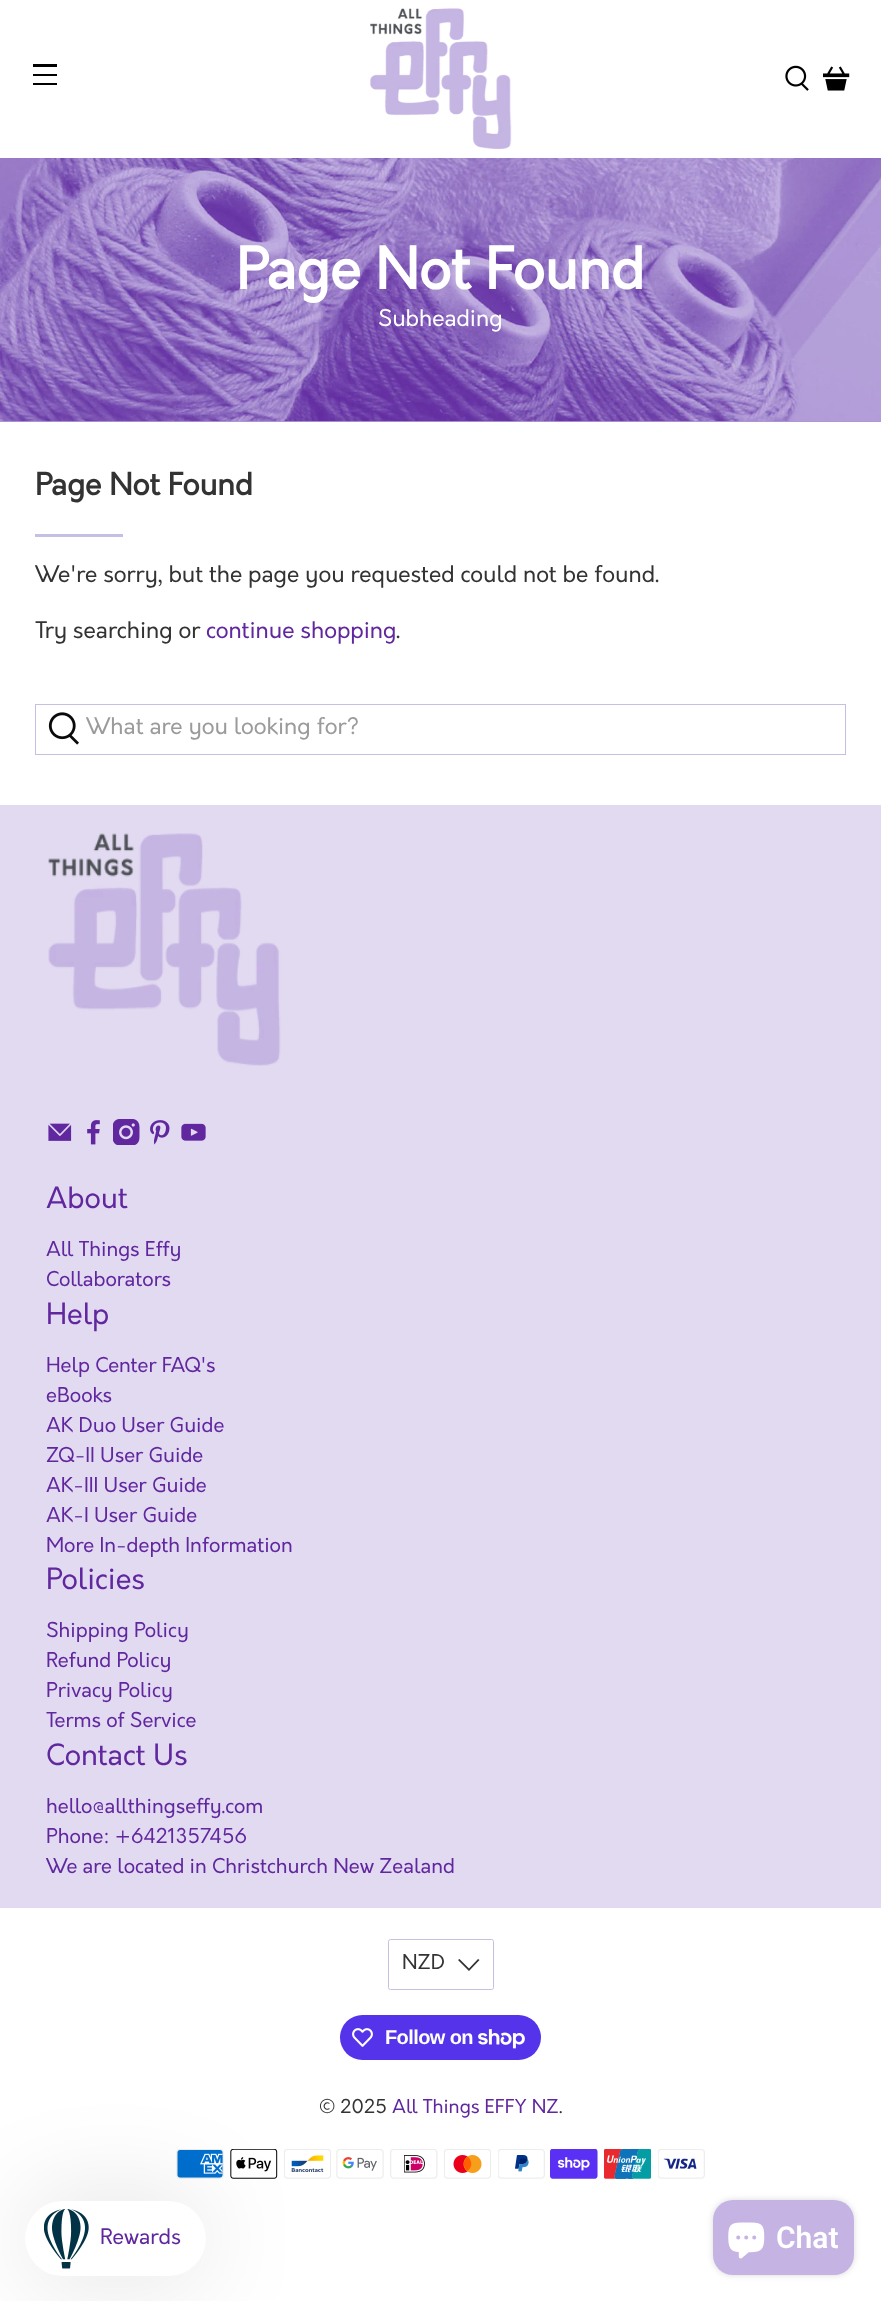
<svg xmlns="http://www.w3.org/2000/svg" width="881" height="2301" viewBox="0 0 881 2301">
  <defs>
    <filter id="blur1" x="-50%" y="-200%" width="200%" height="500%"><feGaussianBlur stdDeviation="50"/></filter>
    <filter id="blur2" x="-50%" y="-200%" width="200%" height="500%"><feGaussianBlur stdDeviation="3"/></filter>
  </defs>
  <rect width="100%" height="100%" fill="#ffffff"/>
  <rect x="33" y="64" width="24" height="3" fill="#000000"/>
  <rect x="33" y="74" width="24" height="2" fill="#000000"/>
  <rect x="33" y="83" width="24" height="2" fill="#000000"/>
  <image x="370" y="8" width="142" height="142" href="img1.png"/>
  <image x="785" y="65" width="24" height="26" href="img2.png"/>
  <image x="823" y="66" width="27" height="25" href="img3.png"/>
  <image x="0" y="421" width="881" height="1" href="img4.png"/>
  <image x="0" y="158" width="881" height="264" href="img5.png"/>
  <text x="236" y="289" font-family="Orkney" font-size="56.25" font-weight="bold" fill="#ffffff">Page Not Found</text>
  <text x="378" y="326" font-family="Orkney" font-size="22.5" fill="#ffffff">Subheading</text>
  <text x="35" y="495" font-family="Orkney" font-size="30" font-weight="bold" fill="#333333">Page Not Found</text>
  <rect x="35" y="534" width="88" height="3" fill="#c5bfe3"/>
  <text x="35" y="582" font-family="Orkney" font-size="22.5" fill="#333333">We're sorry, but the page you requested could not be found.</text>
  <text x="35" y="638" font-family="Orkney" font-size="22.5" fill="#333333">Try searching or</text>
  <text x="206" y="638" font-family="Orkney" font-size="22.5" fill="#61279f">continue shopping</text>
  <text x="396" y="638" font-family="Orkney" font-size="22.5" fill="#333333">.</text>
  <rect x="35.5" y="704.5" width="810" height="50" fill="none" stroke="#c5bfe3"/>
  <image x="48" y="712" width="31" height="33" href="img6.png"/>
  <text x="86" y="734" font-family="Orkney" font-size="22.5" fill="#9b9b9b">What are you looking for?</text>
  <rect x="0" y="805" width="881" height="1103" fill="#e2daf1"/>
  <image x="48" y="833" width="233" height="233" href="img7.png"/>
  <image x="48" y="1123" width="24" height="18" href="img8.png"/>
  <image x="87" y="1120" width="13" height="25" href="img9.png"/>
  <image x="113" y="1119" width="27" height="26" href="img10.png"/>
  <image x="150" y="1120" width="20" height="25" href="img11.png"/>
  <image x="181" y="1123" width="25" height="18" href="img12.png"/>
  <text x="46" y="1208" font-family="Orkney" font-size="28.75" fill="#61279f">About</text>
  <text x="46" y="1256" font-family="Orkney" font-size="20" fill="#61279f">All Things Effy</text>
  <text x="46" y="1286" font-family="Orkney" font-size="20" fill="#61279f">Collaborators</text>
  <text x="46" y="1324" font-family="Orkney" font-size="28.75" fill="#61279f">Help</text>
  <text x="46" y="1372" font-family="Orkney" font-size="20" fill="#61279f">Help Center FAQ's</text>
  <text x="46" y="1402" font-family="Orkney" font-size="20" fill="#61279f">eBooks</text>
  <text x="46" y="1432" font-family="Orkney" font-size="20" fill="#61279f">AK Duo User Guide</text>
  <text x="46" y="1462" font-family="Orkney" font-size="20" fill="#61279f">ZQ-II User Guide</text>
  <text x="46" y="1492" font-family="Orkney" font-size="20" fill="#61279f">AK-III User Guide</text>
  <text x="46" y="1522" font-family="Orkney" font-size="20" fill="#61279f">AK-I User Guide</text>
  <text x="46" y="1552" font-family="Orkney" font-size="20" fill="#61279f">More In-depth Information</text>
  <text x="46" y="1589" font-family="Orkney" font-size="28.75" fill="#61279f">Policies</text>
  <text x="46" y="1637" font-family="Orkney" font-size="20" fill="#61279f">Shipping Policy</text>
  <text x="46" y="1667" font-family="Orkney" font-size="20" fill="#61279f">Refund Policy</text>
  <text x="46" y="1697" font-family="Orkney" font-size="20" fill="#61279f">Privacy Policy</text>
  <text x="46" y="1727" font-family="Orkney" font-size="20" fill="#61279f">Terms of Service</text>
  <text x="46" y="1765" font-family="Orkney" font-size="28.75" fill="#61279f">Contact Us</text>
  <text x="46" y="1813" font-family="Orkney" font-size="20" fill="#61279f">hello@allthingseffy.com</text>
  <text x="46" y="1843" font-family="Orkney" font-size="20" fill="#61279f">Phone: +6421357456</text>
  <text x="46" y="1873" font-family="Orkney" font-size="20" fill="#61279f">We are located in Christchurch New Zealand</text>
  <rect x="388.5" y="1939.5" width="105" height="50" rx="2" fill="none" stroke="#c5bfe3"/>
  <rect x="389" y="1940" width="104" height="49" rx="2.5" fill="#ffffff"/>
  <text x="402" y="1969" font-family="Orkney" font-size="20" fill="#333333">NZD</text>
  <path d="M469 1971L458 1960L459.5 1959L469 1968.5L478 1959L479.5 1960Z" fill="#333333"/>
  <rect x="340" y="2015" width="201" height="45" rx="22.5" fill="#5433eb"/>
  <image x="352" y="2028" width="21" height="19" href="img13.png"/>
  <text x="385" y="2044" font-family="Liberation Sans" font-size="20" font-weight="bold" letter-spacing="-0.6" fill="#ffffff">Follow on</text>
  <image x="478" y="2029" width="47" height="20" href="img14.png"/>
  <text x="319" y="2113" font-family="Orkney" font-size="18.75" fill="#333333">© 2025</text>
  <text x="392" y="2113" font-family="Orkney" font-size="18.75" fill="#61279f">All Things EFFY NZ</text>
  <text x="559" y="2113" font-family="Orkney" font-size="18.75" fill="#333333">.</text>
  <image x="176" y="2149" width="48" height="30" href="img15.png"/>
  <image x="230" y="2149" width="48" height="30" href="img16.png"/>
  <image x="284" y="2149" width="47" height="30" href="img17.png"/>
  <image x="336" y="2149" width="48" height="30" href="img18.png"/>
  <image x="390" y="2149" width="48" height="30" href="img19.png"/>
  <image x="444" y="2149" width="47" height="30" href="img20.png"/>
  <image x="498" y="2149" width="47" height="30" href="img21.png"/>
  <image x="550" y="2149" width="48" height="30" href="img22.png"/>
  <image x="604" y="2149" width="47" height="30" href="img23.png"/>
  <image x="658" y="2149" width="47" height="30" href="img24.png"/>
  <rect x="25" y="2201" width="181" height="75" rx="37.5" fill="#000000" fill-opacity="0.12" filter="url(#blur1)"/>
  <rect x="25" y="2201" width="181" height="75" rx="37.5" fill="#ffffff"/>
  <image x="44" y="2209" width="45" height="60" href="img25.png"/>
  <text x="100" y="2244" font-family="Orkney" font-size="21" fill="#61279f">Rewards</text>
  <rect x="713" y="2200" width="141" height="75" rx="20" fill="#000000" fill-opacity="0.15" filter="url(#blur2)"/>
  <rect x="713" y="2200" width="141" height="75" rx="20" fill="#c5b4e3"/>
  <image x="728" y="2222" width="37" height="37" href="img26.png"/>
  <text x="776" y="2248" font-family="Roboto" font-size="30" font-weight="600" fill="#ffffff">Chat</text>
</svg>
